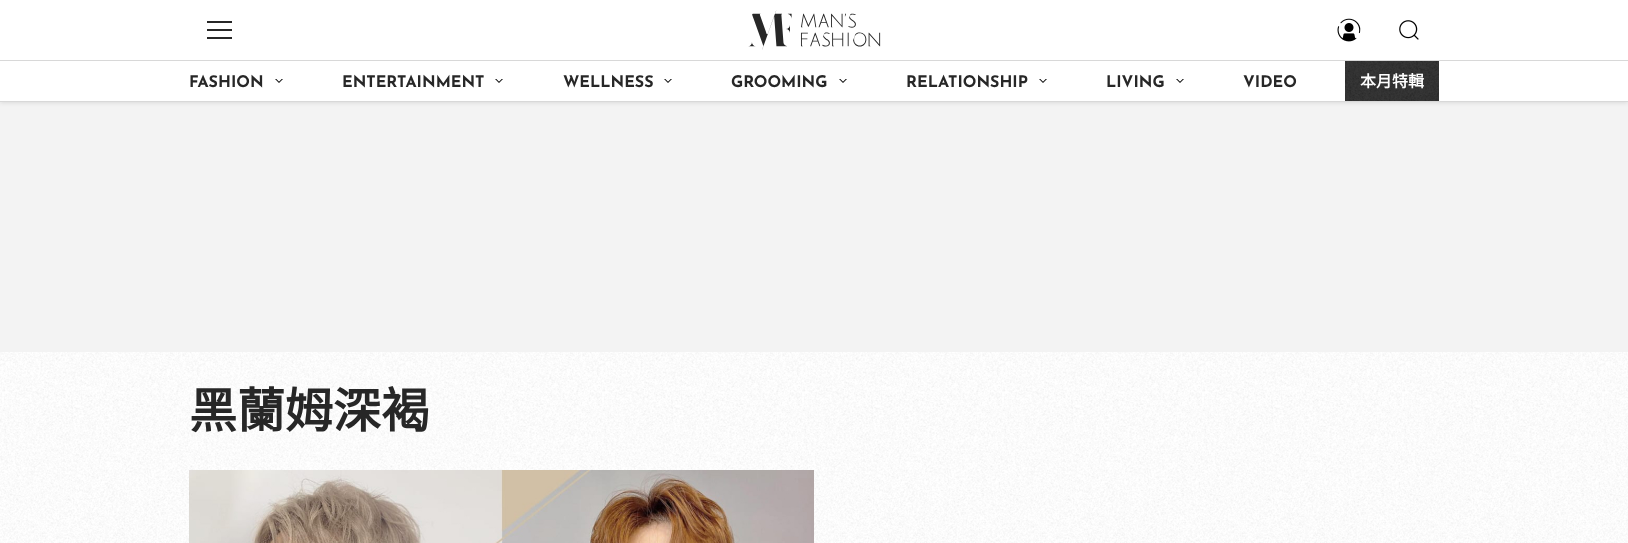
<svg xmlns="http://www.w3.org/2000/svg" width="1628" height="543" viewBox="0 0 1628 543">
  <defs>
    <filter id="blur1" x="-50%" y="-200%" width="200%" height="500%"><feGaussianBlur stdDeviation="2.5"/></filter>
  </defs>
  <rect width="100%" height="100%" fill="#ffffff"/>
  <image x="0" y="352" width="1628" height="191" href="img1.png"/>
  <rect x="0" y="102" width="1628" height="250" fill="#f3f3f3"/>
  <rect x="0" y="0" width="1628" height="102" fill="#000000" fill-opacity="0.15" filter="url(#blur1)"/>
  <rect x="0" y="0" width="1628" height="101" fill="#ffffff"/>
  <rect x="207" y="21" width="25" height="2" fill="#272727"/>
  <rect x="207" y="29" width="25" height="2" fill="#272727"/>
  <rect x="207" y="37" width="25" height="2" fill="#272727"/>
  <image x="748" y="10" width="133" height="40" href="img2.png"/>
  <image x="1337" y="18" width="24" height="24" href="img3.png"/>
  <image x="1399" y="20" width="20" height="20" href="img4.png"/>
  <rect x="0" y="60" width="1628" height="1" fill="#d8d8d8"/>
  <rect x="0" y="101" width="1628" height="1" fill="#d8d8d8"/>
  <text x="189" y="87" font-family="Josefin Sans" font-size="16" font-weight="bold" fill="#272727">FASHION</text>
  <image x="275" y="79" width="8" height="4" href="img5.png"/>
  <text x="342" y="87" font-family="Josefin Sans" font-size="16" font-weight="bold" fill="#272727">ENTERTAINMENT</text>
  <image x="495" y="79" width="8" height="4" href="img5.png"/>
  <text x="563" y="87" font-family="Josefin Sans" font-size="16" font-weight="bold" fill="#272727">WELLNESS</text>
  <image x="664" y="79" width="8" height="4" href="img5.png"/>
  <text x="731" y="87" font-family="Josefin Sans" font-size="16" font-weight="bold" fill="#272727">GROOMING</text>
  <image x="839" y="79" width="8" height="4" href="img5.png"/>
  <text x="906" y="87" font-family="Josefin Sans" font-size="16" font-weight="bold" fill="#272727">RELATIONSHIP</text>
  <image x="1039" y="79" width="8" height="4" href="img5.png"/>
  <text x="1106" y="87" font-family="Josefin Sans" font-size="16" font-weight="bold" fill="#272727">LIVING</text>
  <image x="1176" y="79" width="8" height="4" href="img5.png"/>
  <text x="1243" y="87" font-family="Josefin Sans" font-size="16" font-weight="bold" fill="#272727">VIDEO</text>
  <rect x="1345" y="61" width="94" height="40" fill="#272727"/>
  <image x="1345" y="61" width="94" height="40" href="img6.png"/>
  <text x="1360" y="87" font-family="Noto Sans CJK TC" font-size="16" font-weight="bold" fill="#ffffff">本月特輯</text>
  <text x="189" y="428" font-family="Noto Sans CJK TC" font-size="48" font-weight="bold" fill="#272727">黑蘭姆深褐</text>
  <image x="189" y="470" width="625" height="73" href="img7.png"/>
</svg>
